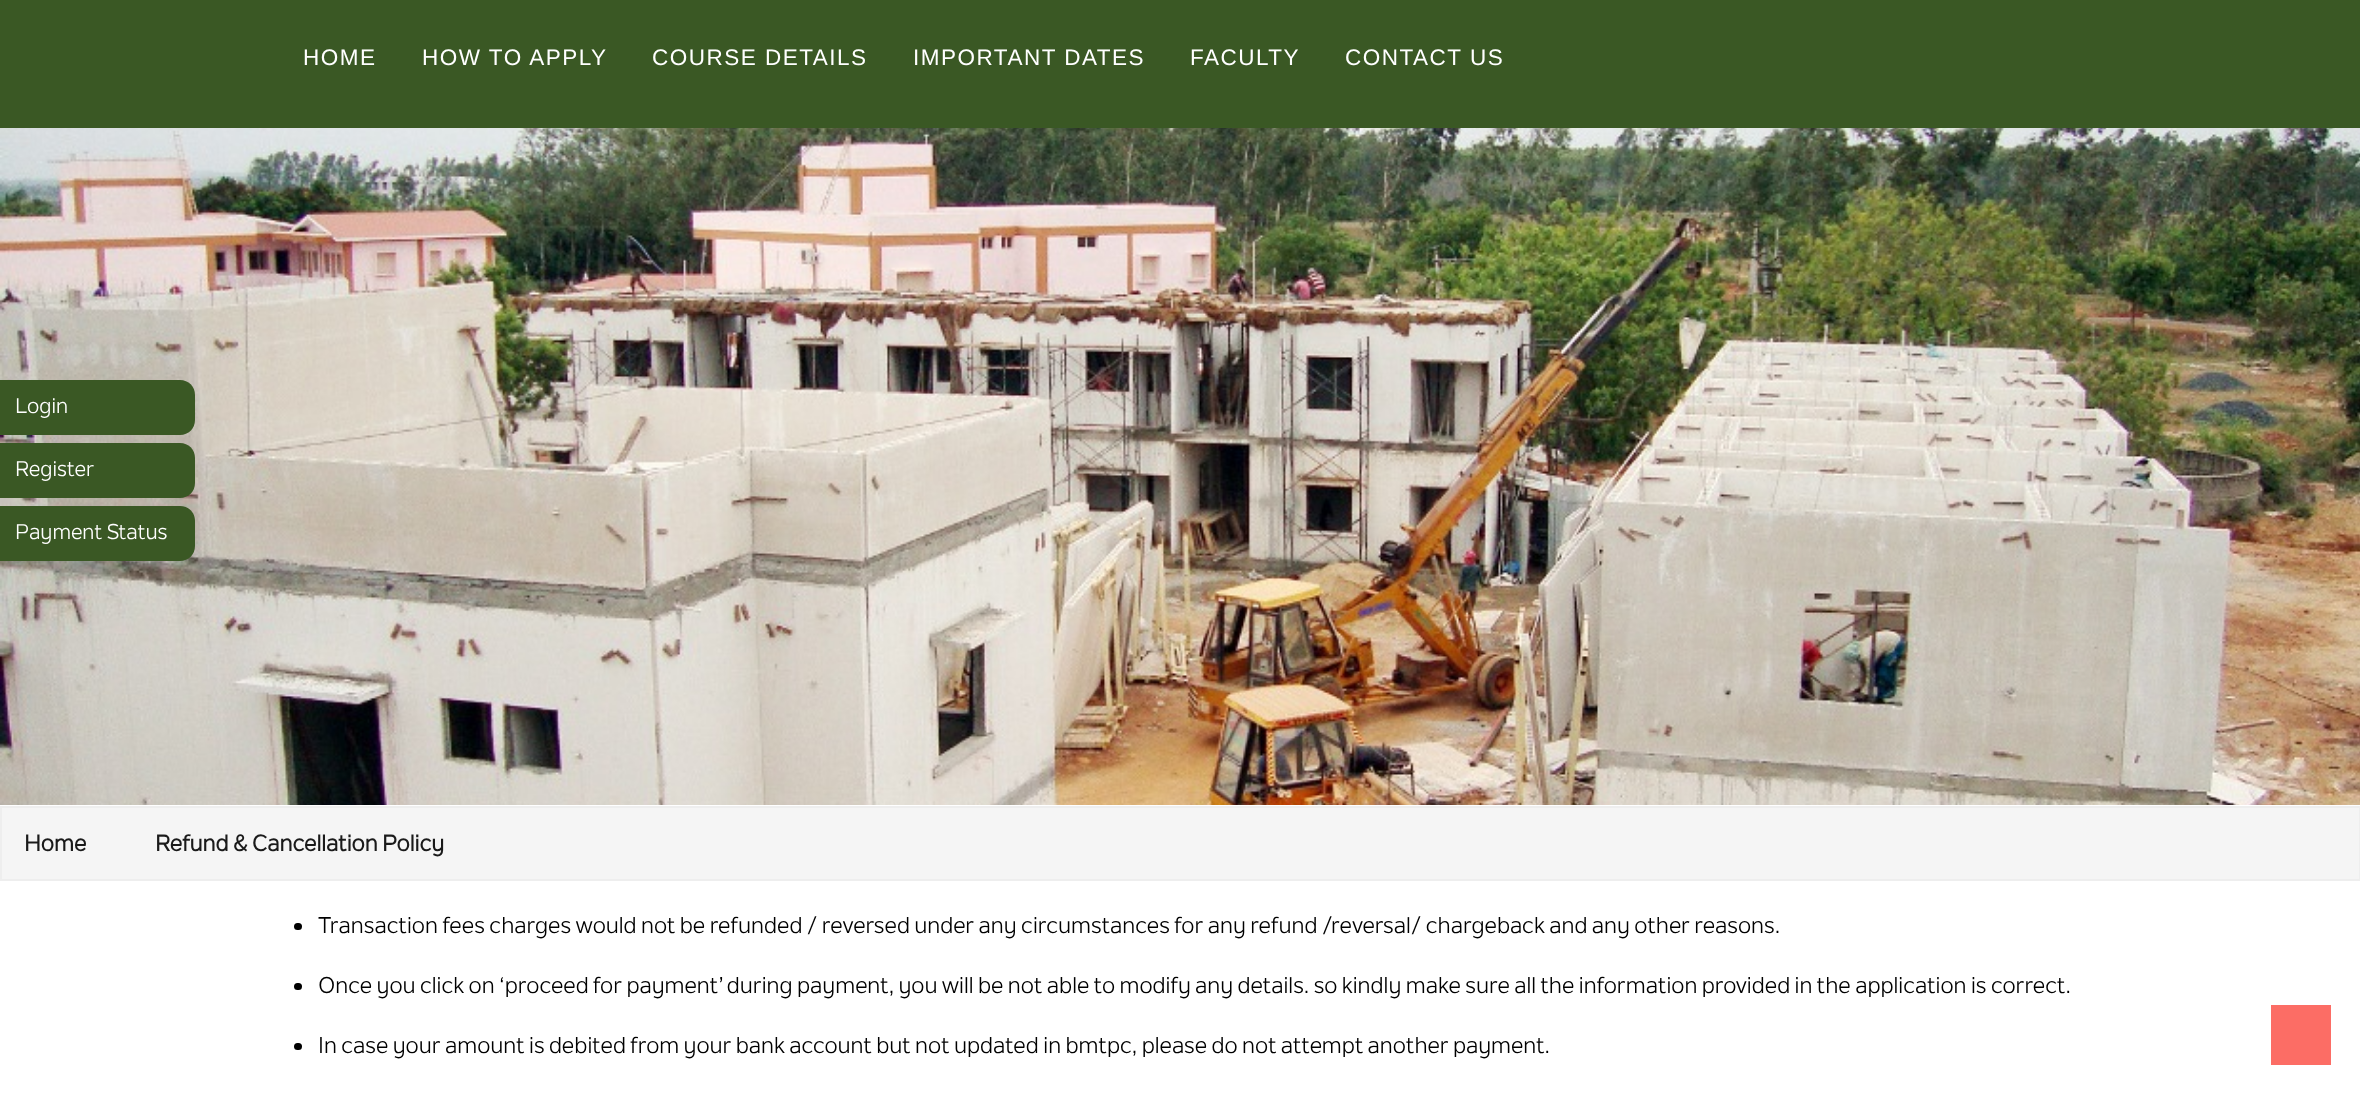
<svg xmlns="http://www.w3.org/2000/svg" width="2360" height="1095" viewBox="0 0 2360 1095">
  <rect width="100%" height="100%" fill="#ffffff"/>
  <rect x="0" y="0" width="2360" height="128" fill="#3a5824"/>
  <text x="303" y="65" font-family="Liberation Sans" font-size="22.5" letter-spacing="1.5" fill="#ffffff">HOME</text>
  <text x="422" y="65" font-family="Liberation Sans" font-size="22.5" letter-spacing="1.5" fill="#ffffff">HOW TO APPLY</text>
  <text x="652" y="65" font-family="Liberation Sans" font-size="22.5" letter-spacing="1.5" fill="#ffffff">COURSE DETAILS</text>
  <text x="913" y="65" font-family="Liberation Sans" font-size="22.5" letter-spacing="1.5" fill="#ffffff">IMPORTANT DATES</text>
  <text x="1190" y="65" font-family="Liberation Sans" font-size="22.5" letter-spacing="1.5" fill="#ffffff">FACULTY</text>
  <text x="1345" y="65" font-family="Liberation Sans" font-size="22.5" letter-spacing="1.5" fill="#ffffff">CONTACT US</text>
  <image x="0" y="128" width="2360" height="677" href="img1.png"/>
  <path d="M0 380H180C188.5 380 195 386.5 195 395V420C195 428.5 188.5 435 180 435H0Z" fill="#3a5824"/>
  <text x="15" y="413" font-family="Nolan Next" font-size="21" fill="#ffffff">Login</text>
  <path d="M0 443H180C188.5 443 195 449.5 195 458V483C195 491.5 188.5 498 180 498H0Z" fill="#3a5824"/>
  <text x="15" y="476" font-family="Nolan Next" font-size="21" fill="#ffffff">Register</text>
  <path d="M0 506H180C188.5 506 195 512.5 195 521V546C195 554.5 188.5 561 180 561H0Z" fill="#3a5824"/>
  <text x="15" y="539" font-family="Nolan Next" font-size="21" fill="#ffffff">Payment Status</text>
  <rect x="1" y="807" width="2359" height="73" fill="#f5f5f5" stroke="#eeeeee" stroke-width="2"/>
  <text x="24" y="851" font-family="Nolan Next" font-size="22.5" font-weight="bold" fill="#1a1a1a">Home</text>
  <text x="155" y="851" font-family="Nolan Next" font-size="22.5" font-weight="bold" fill="#1a1a1a">Refund &amp; Cancellation Policy</text>
  <rect x="294" y="923" width="8" height="7" rx="3.5" fill="#000000"/>
  <text x="318" y="933" font-family="Nolan Next" font-size="22.5" fill="#000000">Transaction fees charges would not be refunded / reversed under any circumstances for any refund /reversal/ chargeback and any other reasons.</text>
  <rect x="294" y="983" width="8" height="7" rx="3.5" fill="#000000"/>
  <text x="318" y="993" font-family="Nolan Next" font-size="22.5" fill="#000000">Once you click on ‘proceed for payment’ during payment, you will be not able to modify any details. so kindly make sure all the information provided in the application is correct.</text>
  <rect x="294" y="1043" width="8" height="7" rx="3.5" fill="#000000"/>
  <text x="318" y="1053" font-family="Nolan Next" font-size="22.5" fill="#000000">In case your amount is debited from your bank account but not updated in bmtpc, please do not attempt another payment.</text>
  <rect x="2271" y="1005" width="60" height="60" fill="#fc6d65"/>
</svg>
